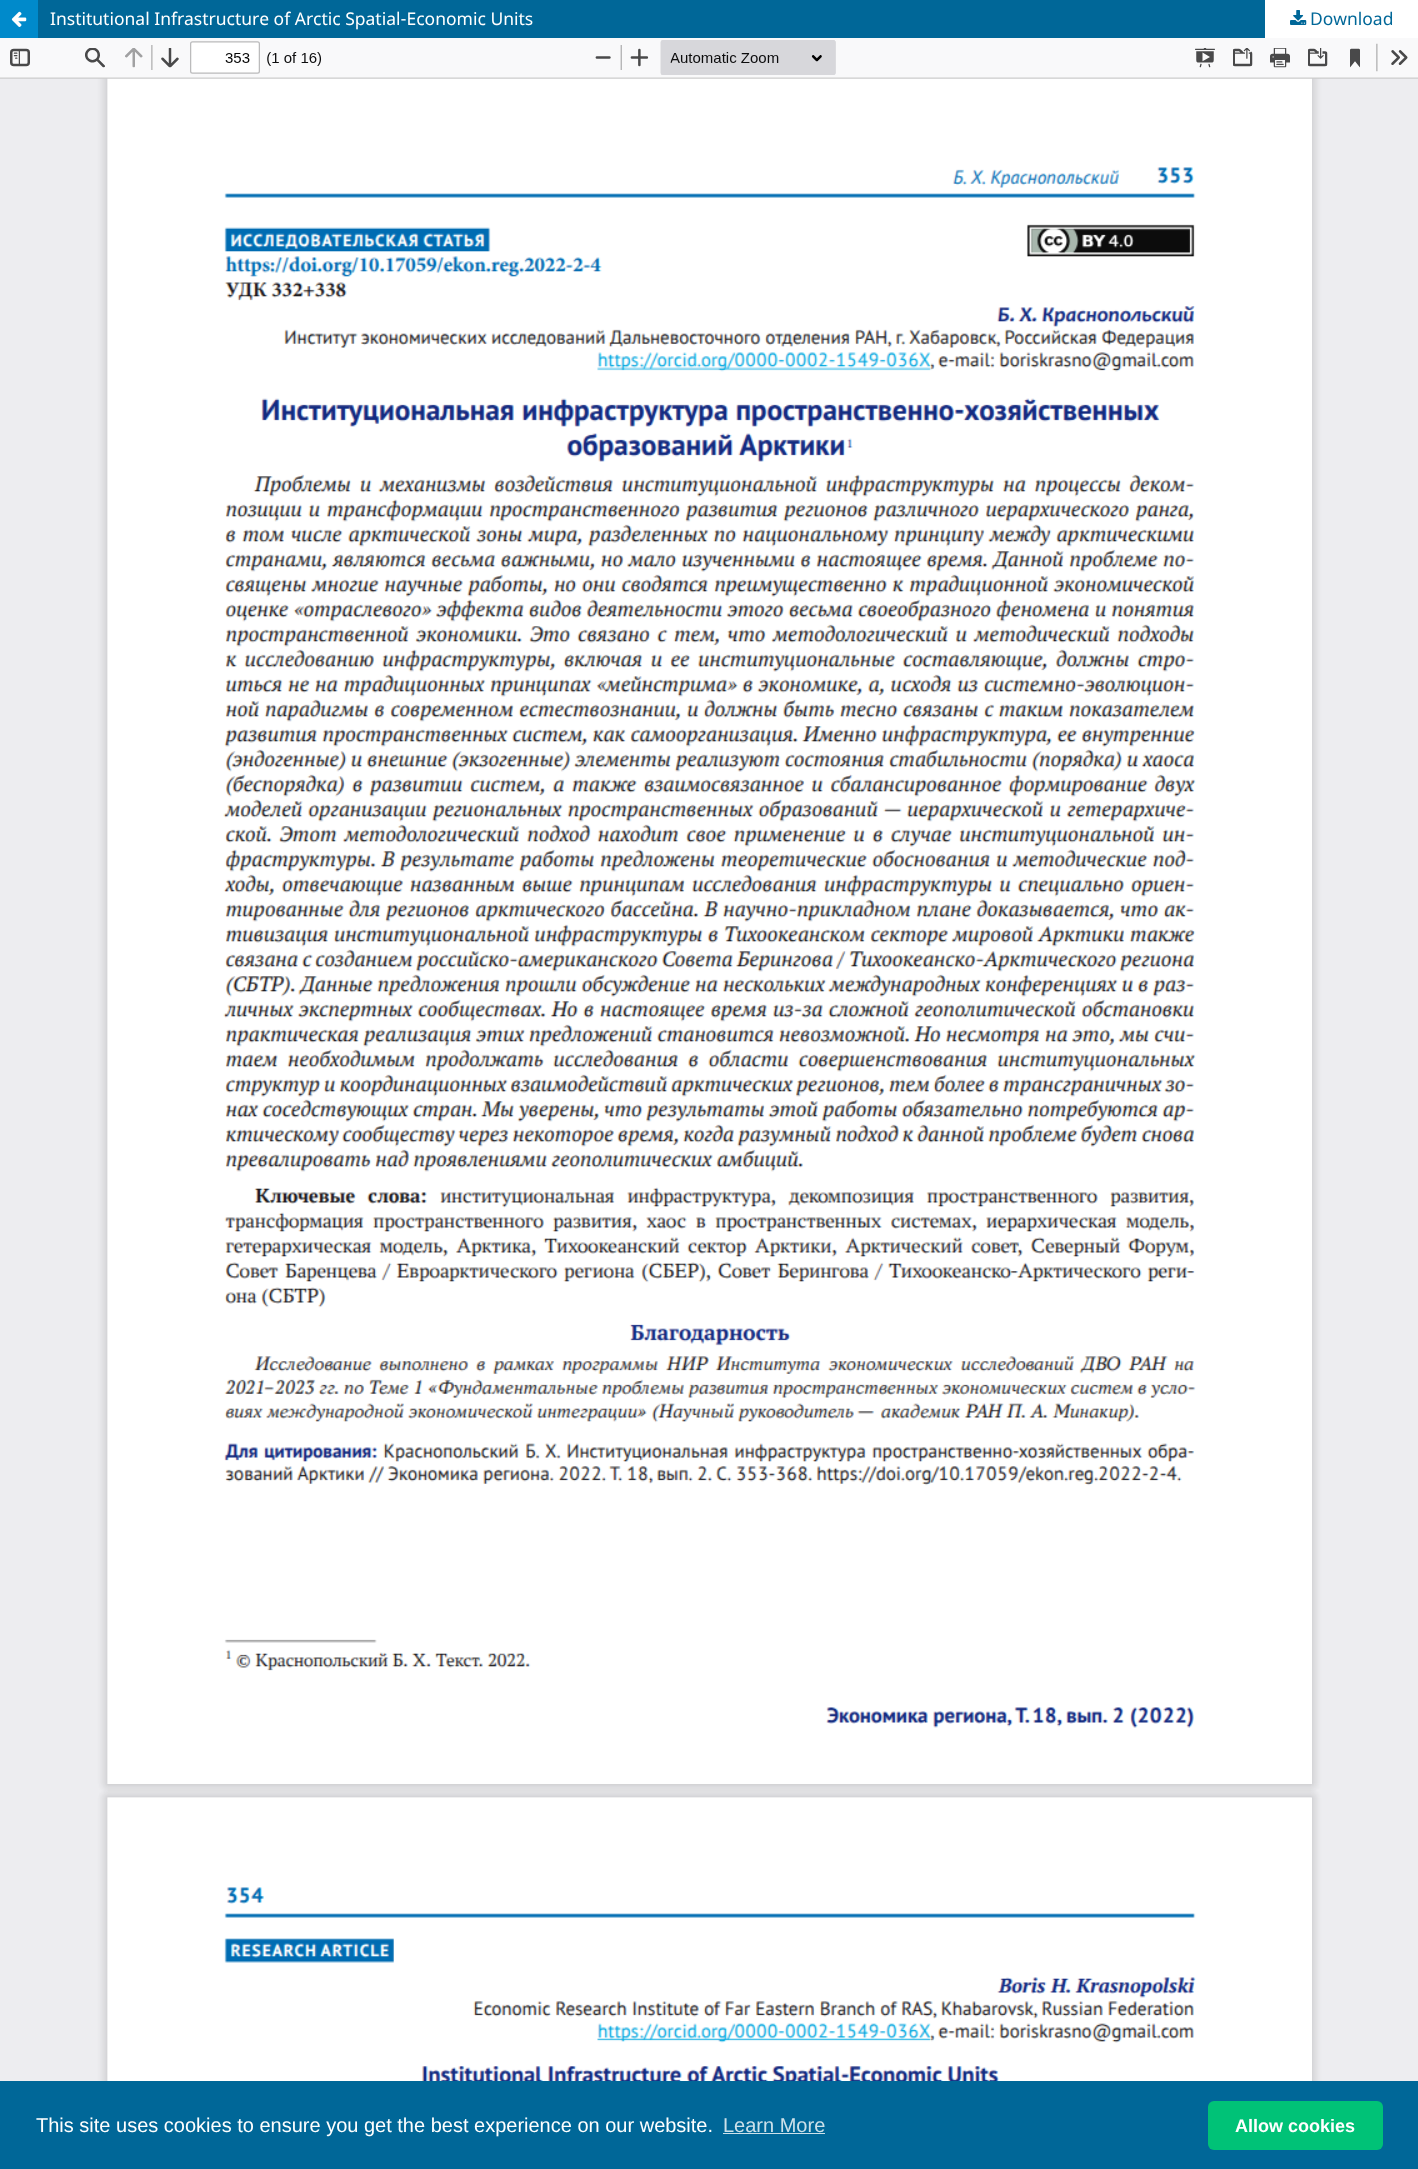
<svg xmlns="http://www.w3.org/2000/svg" width="1418" height="2169" viewBox="0 0 1418 2169">
  <rect width="100%" height="100%" fill="#ffffff"/>
  <rect x="38" y="0" width="1227" height="38" fill="#006798"/>
  <rect x="0" y="0" width="38" height="38" fill="#008acb"/>
  <image x="11" y="11" width="16" height="16" href="img1.png"/>
  <text x="50" y="25" font-family="Noto Sans" font-size="17.5" fill="#ffffff">Institutional Infrastructure of Arctic Spatial-Economic Units</text>
  <image x="1290" y="10" width="17" height="15" href="img2.png"/>
  <text x="1310" y="25" font-family="Noto Sans" font-size="17.5" fill="#006798">Download</text>
  <image x="0" y="38" width="1418" height="2043" href="img3.png"/>
  <rect x="0" y="2081" width="1418" height="88" fill="#006798"/>
  <text x="36" y="2132" font-family="Liberation Sans" font-size="20" fill="#ffffff">This site uses cookies to ensure you get the best experience on our website.</text>
  <text x="723" y="2132" font-family="Liberation Sans" font-size="20" fill="#cce1ea">Learn More</text>
  <rect x="723" y="2133" width="102" height="1" fill="#cce1ea"/>
  <rect x="1208" y="2101" width="175" height="49" rx="6" fill="#00c277"/>
  <text x="1235" y="2132" font-family="Liberation Sans" font-size="18" font-weight="bold" fill="#ffffff">Allow cookies</text>
</svg>
